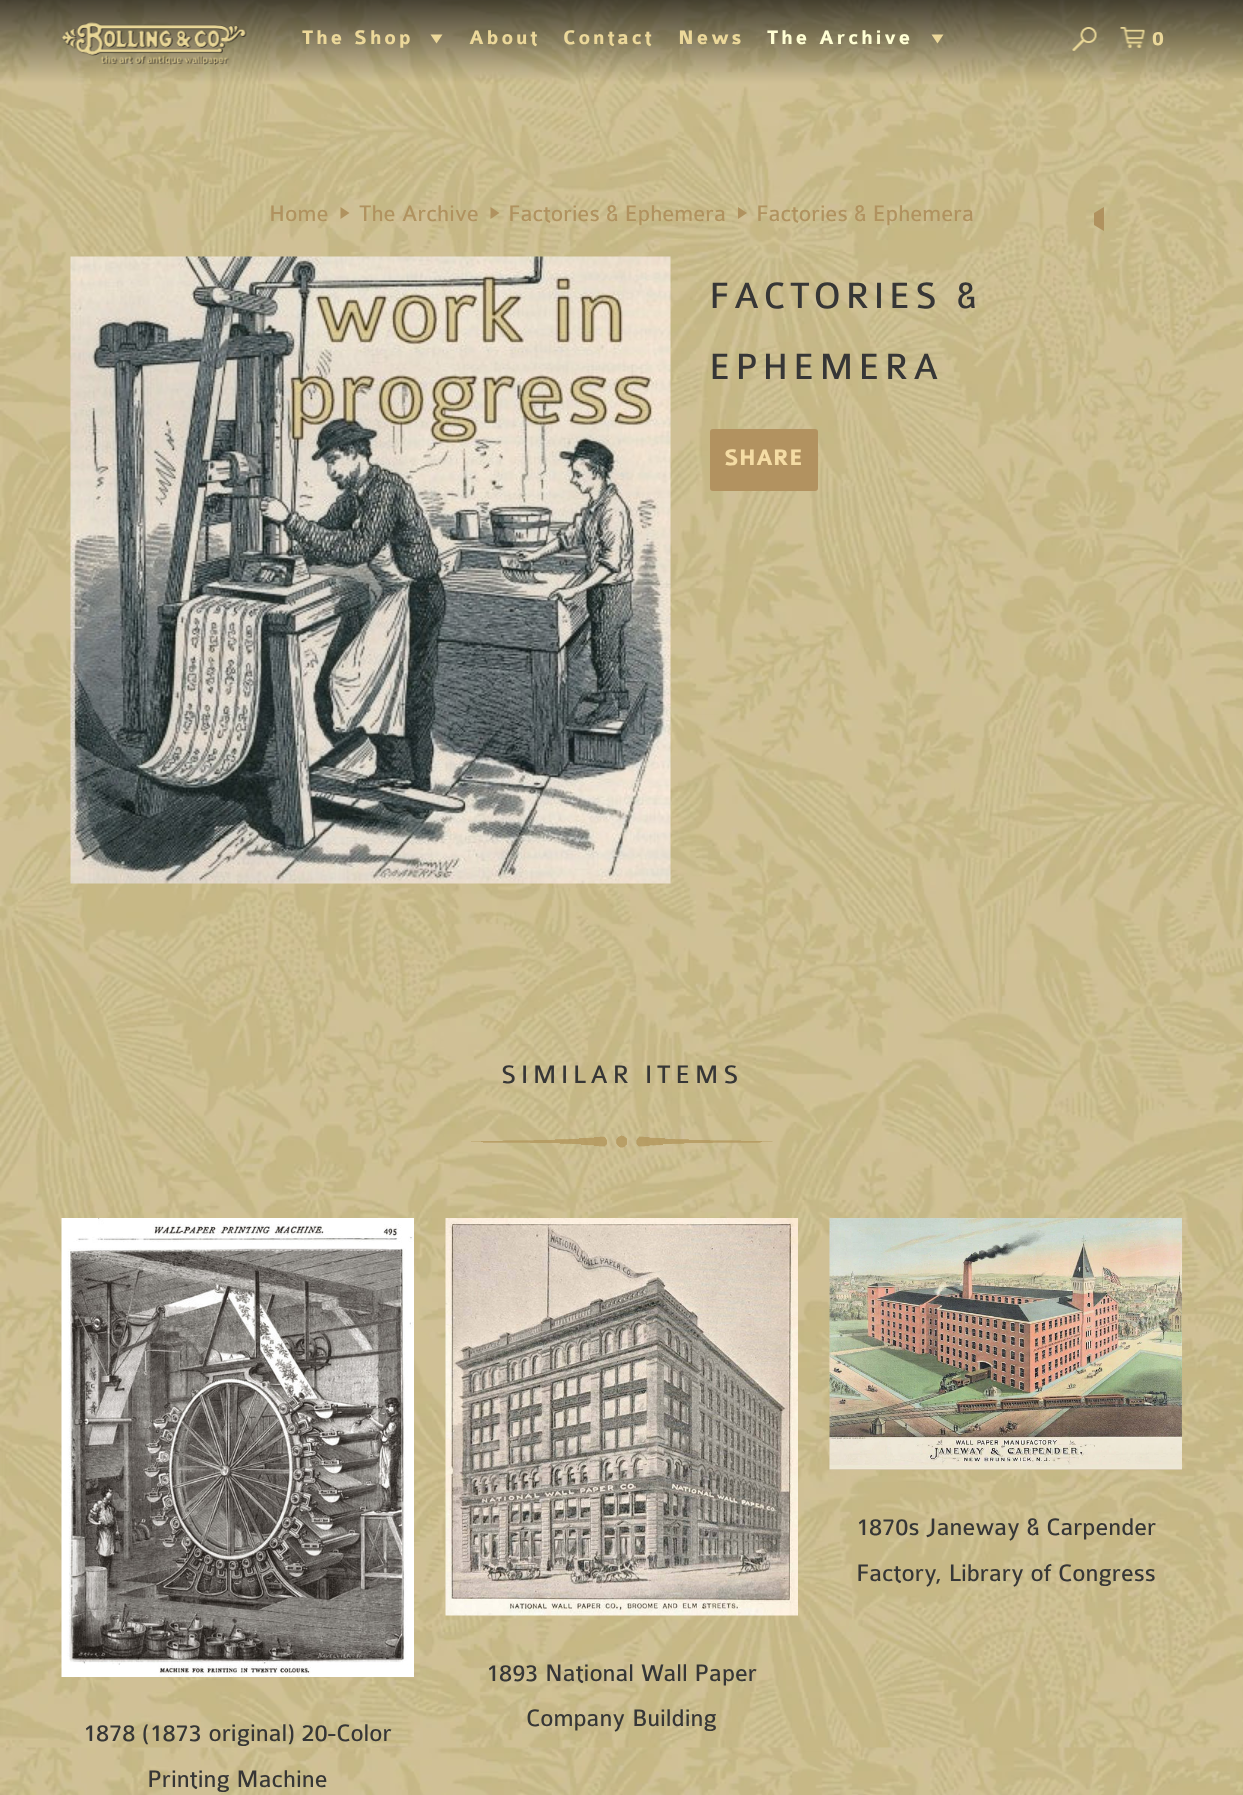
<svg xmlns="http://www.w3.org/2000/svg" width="1243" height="1795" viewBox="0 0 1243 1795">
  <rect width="100%" height="100%" fill="#ffffff"/>
  <image x="0" y="0" width="1243" height="1795" href="img1.png"/>
  <image x="61" y="22" width="186" height="43" href="img2.png"/>
  <text x="302" y="44" font-family="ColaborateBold" font-size="21" font-weight="bold" letter-spacing="3" fill="#ecd89a">The Shop</text>
  <path d="M430.5 34.5H442.5L436.5 43.5Z" fill="#ecd89a"/>
  <text x="469" y="44" font-family="ColaborateBold" font-size="21" font-weight="bold" letter-spacing="3" fill="#ecd89a">About</text>
  <text x="563" y="44" font-family="ColaborateBold" font-size="21" font-weight="bold" letter-spacing="3" fill="#ecd89a">Contact</text>
  <text x="678" y="44" font-family="ColaborateBold" font-size="21" font-weight="bold" letter-spacing="3" fill="#ecd89a">News</text>
  <text x="767" y="44" font-family="ColaborateBold" font-size="21" font-weight="bold" letter-spacing="3" fill="#ffffd4">The Archive</text>
  <path d="M931.5 34.5H943.5L937.5 43.5Z" fill="#ecd89a"/>
  <image x="1072" y="27" width="25" height="24" href="img3.png"/>
  <image x="1120" y="27" width="25" height="21" href="img4.png"/>
  <text x="1152" y="45" font-family="ColaborateBold" font-size="21" font-weight="bold" letter-spacing="3" fill="#ecd89a">0</text>
  <text x="269" y="221" font-family="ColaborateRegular" font-size="24" fill="#b0925f">Home</text>
  <path d="M340.5 219V207L349.5 213Z" fill="#b0925f"/>
  <text x="359" y="221" font-family="ColaborateRegular" font-size="24" fill="#b0925f">The Archive</text>
  <path d="M490.5 219V207L499.5 213Z" fill="#b0925f"/>
  <text x="508" y="221" font-family="ColaborateRegular" font-size="24" fill="#b0925f">Factories &amp; Ephemera</text>
  <path d="M738 219V207L747 213Z" fill="#b0925f"/>
  <text x="756" y="221" font-family="ColaborateRegular" font-size="24" fill="#b0925f">Factories &amp; Ephemera</text>
  <path d="M1104 207V231L1094 225V213Z" fill="#b0925f"/>
  <image x="70" y="256" width="601" height="628" href="img5.png"/>
  <text x="709" y="308" font-family="ColaborateRegular" font-size="39" letter-spacing="4.5" fill="#363636">FACTORIES &amp;</text>
  <text x="709" y="379" font-family="ColaborateRegular" font-size="39" letter-spacing="4.5" fill="#363636">EPHEMERA</text>
  <rect x="710" y="429" width="108" height="62" rx="3" fill="#b29260"/>
  <text x="724" y="465" font-family="ColaborateBold" font-size="24" font-weight="bold" fill="#f4dca4">SHARE</text>
  <text x="501" y="1083" font-family="ColaborateRegular" font-size="27" letter-spacing="4.5" fill="#363636">SIMILAR ITEMS</text>
  <image x="471" y="1135" width="302" height="13" href="img6.png"/>
  <image x="829" y="1218" width="353" height="252" href="img7.png"/>
  <text x="856" y="1535" font-family="ColaborateRegular" font-size="25.5" fill="#363636">1870s Janeway &amp; Carpender</text>
  <text x="856" y="1581" font-family="ColaborateRegular" font-size="25.5" fill="#363636">Factory, Library of Congress</text>
  <image x="445" y="1218" width="353" height="398" href="img8.png"/>
  <text x="486" y="1681" font-family="ColaborateRegular" font-size="25.5" fill="#363636">1893 National Wall Paper</text>
  <text x="526" y="1726" font-family="ColaborateRegular" font-size="25.5" fill="#363636">Company Building</text>
  <image x="61" y="1218" width="353" height="459" href="img9.png"/>
  <text x="83" y="1741" font-family="ColaborateRegular" font-size="25.5" fill="#363636">1878 (1873 original) 20-Color</text>
  <text x="147" y="1787" font-family="ColaborateRegular" font-size="25.5" fill="#363636">Printing Machine</text>
</svg>
